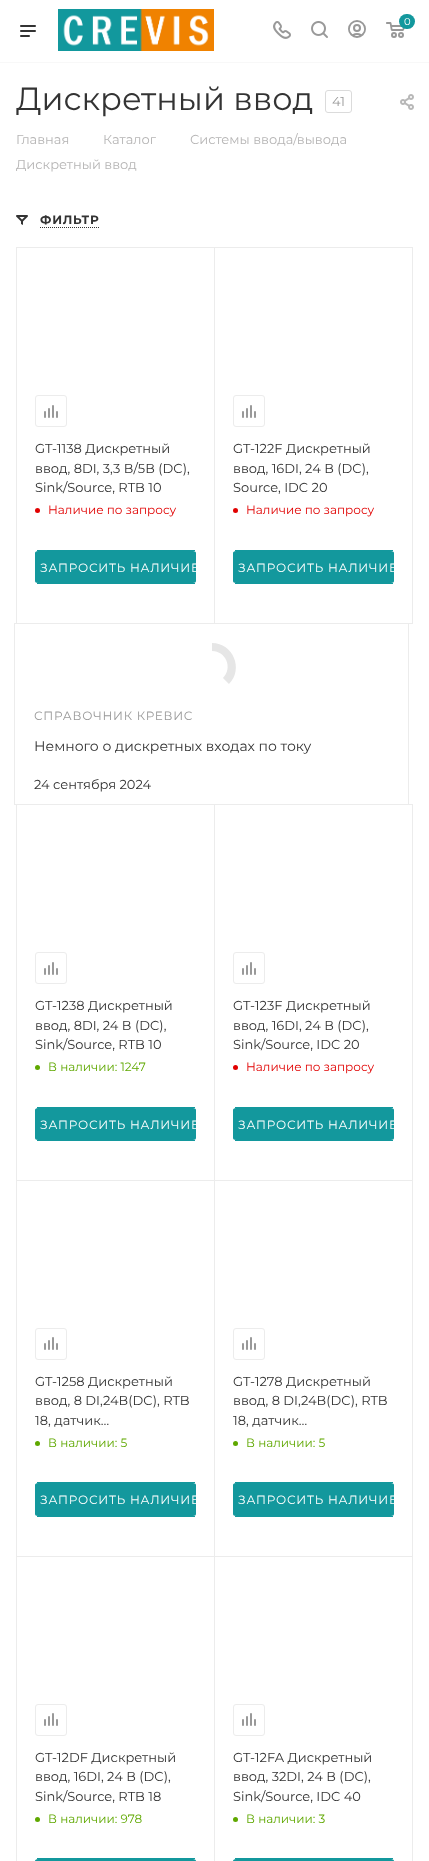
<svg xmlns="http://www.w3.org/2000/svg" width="429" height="1861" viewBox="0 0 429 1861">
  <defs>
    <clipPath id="clip1"><path d="M38 551H193C194.5 551 196 552 196 553V581C196 582 194.5 583 193 583H38C36.5 583 35 582 35 581V553C35 552 36.5 551 38 551Z"/></clipPath>
    <clipPath id="clip2"><path d="M236 551H391C392.5 551 394 552 394 553V581C394 582 392.5 583 391 583H236C234.5 583 233 582 233 581V553C233 552 234.5 551 236 551Z"/></clipPath>
    <clipPath id="clip3"><path d="M38 1108H193C194.5 1108 196 1109 196 1110V1138C196 1139 194.5 1140 193 1140H38C36.5 1140 35 1139 35 1138V1110C35 1109 36.5 1108 38 1108Z"/></clipPath>
    <clipPath id="clip4"><path d="M236 1108H391C392.5 1108 394 1109 394 1110V1138C394 1139 392.5 1140 391 1140H236C234.5 1140 233 1139 233 1138V1110C233 1109 234.5 1108 236 1108Z"/></clipPath>
    <clipPath id="clip5"><path d="M38 1483H193C194.5 1483 196 1484 196 1485V1514C196 1515 194.5 1516 193 1516H38C36.5 1516 35 1515 35 1514V1485C35 1484 36.5 1483 38 1483Z"/></clipPath>
    <clipPath id="clip6"><path d="M236 1483H391C392.5 1483 394 1484 394 1485V1514C394 1515 392.5 1516 391 1516H236C234.5 1516 233 1515 233 1514V1485C233 1484 234.5 1483 236 1483Z"/></clipPath>
  </defs>
  <rect width="100%" height="100%" fill="#ffffff"/>
  <rect x="0" y="62" width="429" height="1" fill="#f8f8f8"/>
  <rect x="58" y="9" width="5" height="42" fill="#13989d"/>
  <image x="63" y="9" width="151" height="42" href="img1.png"/>
  <image x="273" y="21" width="18" height="18" href="img2.png"/>
  <image x="311" y="21" width="17" height="17" href="img3.png"/>
  <image x="348" y="20" width="18" height="18" href="img4.png"/>
  <image x="386" y="22" width="19" height="16" href="img5.png"/>
  <rect x="399" y="14" width="16" height="15" rx="7.5" fill="#13989d"/>
  <text x="404" y="25" font-family="Montserrat" font-size="10" fill="#ffffff">0</text>
  <image x="20" y="25" width="16" height="12" href="img6.png"/>
  <text x="16" y="110" font-family="Montserrat" font-size="32" fill="#333333">Дискретный ввод</text>
  <rect x="325.5" y="90.5" width="26" height="22" rx="2.5" fill="none" stroke="#dbdbdb"/>
  <text x="332" y="106" font-family="Montserrat" font-size="13" fill="#999999">41</text>
  <image x="400" y="94" width="14" height="16" href="img7.png"/>
  <text x="16" y="144" font-family="Montserrat" font-size="13" fill="#b6b5b5">Главная</text>
  <text x="103" y="144" font-family="Montserrat" font-size="13" fill="#b6b5b5">Каталог</text>
  <text x="190" y="144" font-family="Montserrat" font-size="13" fill="#b6b5b5">Системы ввода/вывода</text>
  <text x="16" y="169" font-family="Montserrat" font-size="13" fill="#b6b5b5">Дискретный ввод</text>
  <image x="16" y="215" width="12" height="10" href="img8.png"/>
  <text x="40" y="224" font-family="Montserrat" font-size="12" font-weight="bold" letter-spacing="0.75" fill="#333333">ФИЛЬТР</text>
  <path d="M40 227.5H100" fill="none" stroke="#333333" stroke-dasharray="1 1"/>
  <rect x="16.5" y="247.5" width="198" height="376" fill="none" stroke="#ececec"/>
  <rect x="35.5" y="395.5" width="31" height="31" rx="2.5" fill="none" stroke="#ececec"/>
  <image x="44" y="405" width="14" height="13" href="img9.png"/>
  <text x="35" y="453" font-family="Montserrat" font-size="13" fill="#333333">GT-1138 Дискретный</text>
  <text x="35" y="473" font-family="Montserrat" font-size="13" fill="#333333">ввод, 8DI, 3,3 В/5В (DC),</text>
  <text x="35" y="492" font-family="Montserrat" font-size="13" fill="#333333">Sink/Source, RTB 10</text>
  <circle cx="37.5" cy="510.5" r="2.5" fill="#e10000"/>
  <text x="48" y="514" font-family="Montserrat" font-size="12" fill="#e10000">Наличие по запросу</text>
  <path d="M38 551H193C195 551 196 552 196 553V581C196 582 195 583 193 583H38C36 583 35 582 35 581V553C35 552 36 551 38 551Z" fill="#13989d"/>
  <rect x="37" y="550" width="158" height="1" fill="#13989d"/>
  <rect x="37" y="583" width="158" height="1" fill="#13989d"/>
  <g clip-path="url(#clip1)">
    <text x="40" y="572" font-family="Montserrat" font-size="12" letter-spacing="0.75" fill="#ffffff">ЗАПРОСИТЬ НАЛИЧИЕ</text>
  </g>
  <rect x="214.5" y="247.5" width="198" height="376" fill="none" stroke="#ececec"/>
  <rect x="233.5" y="395.5" width="31" height="31" rx="2.5" fill="none" stroke="#ececec"/>
  <image x="242" y="405" width="14" height="13" href="img9.png"/>
  <text x="233" y="453" font-family="Montserrat" font-size="13" fill="#333333">GT-122F Дискретный</text>
  <text x="233" y="473" font-family="Montserrat" font-size="13" fill="#333333">ввод, 16DI, 24 В (DC),</text>
  <text x="233" y="492" font-family="Montserrat" font-size="13" fill="#333333">Source, IDC 20</text>
  <circle cx="235.5" cy="510.5" r="2.5" fill="#e10000"/>
  <text x="246" y="514" font-family="Montserrat" font-size="12" fill="#e10000">Наличие по запросу</text>
  <path d="M236 551H391C393 551 394 552 394 553V581C394 582 393 583 391 583H236C234 583 233 582 233 581V553C233 552 234 551 236 551Z" fill="#13989d"/>
  <rect x="235" y="550" width="158" height="1" fill="#13989d"/>
  <rect x="235" y="583" width="158" height="1" fill="#13989d"/>
  <g clip-path="url(#clip2)">
    <text x="238" y="572" font-family="Montserrat" font-size="12" letter-spacing="0.75" fill="#ffffff">ЗАПРОСИТЬ НАЛИЧИЕ</text>
  </g>
  <rect x="16.5" y="804.5" width="198" height="376" fill="none" stroke="#ececec"/>
  <rect x="214.5" y="804.5" width="198" height="376" fill="none" stroke="#ececec"/>
  <rect x="14.5" y="623.5" width="394" height="181" fill="none" stroke="#ececec"/>
  <path d="M212 643C233 643 244 669 229 684L223 678C233 668 226 651 212 651Z" fill="#e6e6e6"/>
  <text x="34" y="720" font-family="Montserrat" font-size="12" letter-spacing="0.75" fill="#999999">СПРАВОЧНИК КРЕВИС</text>
  <text x="34" y="789" font-family="Montserrat" font-size="13" fill="#333333">24 сентября 2024</text>
  <text x="34" y="751" font-family="Montserrat" font-size="14" fill="#333333">Немного о дискретных входах по току</text>
  <rect x="35.5" y="952.5" width="31" height="31" rx="2.5" fill="none" stroke="#ececec"/>
  <image x="44" y="962" width="14" height="13" href="img9.png"/>
  <text x="35" y="1010" font-family="Montserrat" font-size="13" fill="#333333">GT-1238 Дискретный</text>
  <text x="35" y="1030" font-family="Montserrat" font-size="13" fill="#333333">ввод, 8DI, 24 В (DC),</text>
  <text x="35" y="1049" font-family="Montserrat" font-size="13" fill="#333333">Sink/Source, RTB 10</text>
  <circle cx="37.5" cy="1067.5" r="2.5" fill="#5fa800"/>
  <text x="48" y="1071" font-family="Montserrat" font-size="12" fill="#5fa800">В наличии: 1247</text>
  <path d="M38 1108H193C195 1108 196 1109 196 1110V1138C196 1139 195 1140 193 1140H38C36 1140 35 1139 35 1138V1110C35 1109 36 1108 38 1108Z" fill="#13989d"/>
  <rect x="37" y="1107" width="158" height="1" fill="#13989d"/>
  <rect x="37" y="1140" width="158" height="1" fill="#13989d"/>
  <g clip-path="url(#clip3)">
    <text x="40" y="1129" font-family="Montserrat" font-size="12" letter-spacing="0.75" fill="#ffffff">ЗАПРОСИТЬ НАЛИЧИЕ</text>
  </g>
  <rect x="233.5" y="952.5" width="31" height="31" rx="2.5" fill="none" stroke="#ececec"/>
  <image x="242" y="962" width="14" height="13" href="img9.png"/>
  <text x="233" y="1010" font-family="Montserrat" font-size="13" fill="#333333">GT-123F Дискретный</text>
  <text x="233" y="1030" font-family="Montserrat" font-size="13" fill="#333333">ввод, 16DI, 24 В (DC),</text>
  <text x="233" y="1049" font-family="Montserrat" font-size="13" fill="#333333">Sink/Source, IDC 20</text>
  <circle cx="235.5" cy="1067.5" r="2.5" fill="#e10000"/>
  <text x="246" y="1071" font-family="Montserrat" font-size="12" fill="#e10000">Наличие по запросу</text>
  <path d="M236 1108H391C393 1108 394 1109 394 1110V1138C394 1139 393 1140 391 1140H236C234 1140 233 1139 233 1138V1110C233 1109 234 1108 236 1108Z" fill="#13989d"/>
  <rect x="235" y="1107" width="158" height="1" fill="#13989d"/>
  <rect x="235" y="1140" width="158" height="1" fill="#13989d"/>
  <g clip-path="url(#clip4)">
    <text x="238" y="1129" font-family="Montserrat" font-size="12" letter-spacing="0.75" fill="#ffffff">ЗАПРОСИТЬ НАЛИЧИЕ</text>
  </g>
  <rect x="16.5" y="1180.5" width="198" height="376" fill="none" stroke="#ececec"/>
  <rect x="35.5" y="1328.5" width="31" height="31" rx="2.5" fill="none" stroke="#ececec"/>
  <image x="44" y="1337" width="14" height="13" href="img9.png"/>
  <text x="35" y="1386" font-family="Montserrat" font-size="13" fill="#333333">GT-1258 Дискретный</text>
  <text x="35" y="1405" font-family="Montserrat" font-size="13" fill="#333333">ввод, 8 DI,24В(DC), RTB</text>
  <text x="35" y="1425" font-family="Montserrat" font-size="13" fill="#333333">18, датчик…</text>
  <circle cx="37.5" cy="1443.5" r="2.5" fill="#5fa800"/>
  <text x="48" y="1447" font-family="Montserrat" font-size="12" fill="#5fa800">В наличии: 5</text>
  <path d="M38 1483H193C195 1483 196 1484 196 1485V1514C196 1515 195 1516 193 1516H38C36 1516 35 1515 35 1514V1485C35 1484 36 1483 38 1483Z" fill="#13989d"/>
  <rect x="37" y="1482" width="158" height="1" fill="#13989d"/>
  <rect x="37" y="1516" width="158" height="1" fill="#13989d"/>
  <g clip-path="url(#clip5)">
    <text x="40" y="1504" font-family="Montserrat" font-size="12" letter-spacing="0.75" fill="#ffffff">ЗАПРОСИТЬ НАЛИЧИЕ</text>
  </g>
  <rect x="214.5" y="1180.5" width="198" height="376" fill="none" stroke="#ececec"/>
  <rect x="233.5" y="1328.5" width="31" height="31" rx="2.5" fill="none" stroke="#ececec"/>
  <image x="242" y="1337" width="14" height="13" href="img9.png"/>
  <text x="233" y="1386" font-family="Montserrat" font-size="13" fill="#333333">GT-1278 Дискретный</text>
  <text x="233" y="1405" font-family="Montserrat" font-size="13" fill="#333333">ввод, 8 DI,24В(DC), RTB</text>
  <text x="233" y="1425" font-family="Montserrat" font-size="13" fill="#333333">18, датчик…</text>
  <circle cx="235.5" cy="1443.5" r="2.5" fill="#5fa800"/>
  <text x="246" y="1447" font-family="Montserrat" font-size="12" fill="#5fa800">В наличии: 5</text>
  <path d="M236 1483H391C393 1483 394 1484 394 1485V1514C394 1515 393 1516 391 1516H236C234 1516 233 1515 233 1514V1485C233 1484 234 1483 236 1483Z" fill="#13989d"/>
  <rect x="235" y="1482" width="158" height="1" fill="#13989d"/>
  <rect x="235" y="1516" width="158" height="1" fill="#13989d"/>
  <g clip-path="url(#clip6)">
    <text x="238" y="1504" font-family="Montserrat" font-size="12" letter-spacing="0.75" fill="#ffffff">ЗАПРОСИТЬ НАЛИЧИЕ</text>
  </g>
  <rect x="16.5" y="1556.5" width="198" height="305" fill="none" stroke="#ececec"/>
  <rect x="35.5" y="1704.5" width="31" height="31" rx="2.5" fill="none" stroke="#ececec"/>
  <image x="44" y="1713" width="14" height="13" href="img9.png"/>
  <text x="35" y="1762" font-family="Montserrat" font-size="13" fill="#333333">GT-12DF Дискретный</text>
  <text x="35" y="1781" font-family="Montserrat" font-size="13" fill="#333333">ввод, 16DI, 24 В (DC),</text>
  <text x="35" y="1801" font-family="Montserrat" font-size="13" fill="#333333">Sink/Source, RTB 18</text>
  <circle cx="37.5" cy="1819.5" r="2.5" fill="#5fa800"/>
  <text x="48" y="1823" font-family="Montserrat" font-size="12" fill="#5fa800">В наличии: 978</text>
  <path d="M38 1859H193C195 1859 196 1860 196 1861V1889C196 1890 195 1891 193 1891H38C36 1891 35 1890 35 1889V1861C35 1860 36 1859 38 1859Z" fill="#13989d"/>
  <rect x="37" y="1858" width="158" height="1" fill="#13989d"/>
  <rect x="214.5" y="1556.5" width="198" height="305" fill="none" stroke="#ececec"/>
  <rect x="233.5" y="1704.5" width="31" height="31" rx="2.5" fill="none" stroke="#ececec"/>
  <image x="242" y="1713" width="14" height="13" href="img9.png"/>
  <text x="233" y="1762" font-family="Montserrat" font-size="13" fill="#333333">GT-12FA Дискретный</text>
  <text x="233" y="1781" font-family="Montserrat" font-size="13" fill="#333333">ввод, 32DI, 24 В (DC),</text>
  <text x="233" y="1801" font-family="Montserrat" font-size="13" fill="#333333">Sink/Source, IDC 40</text>
  <circle cx="235.5" cy="1819.5" r="2.5" fill="#5fa800"/>
  <text x="246" y="1823" font-family="Montserrat" font-size="12" fill="#5fa800">В наличии: 3</text>
  <path d="M236 1859H391C393 1859 394 1860 394 1861V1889C394 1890 393 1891 391 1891H236C234 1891 233 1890 233 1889V1861C233 1860 234 1859 236 1859Z" fill="#13989d"/>
  <rect x="235" y="1858" width="158" height="1" fill="#13989d"/>
</svg>
